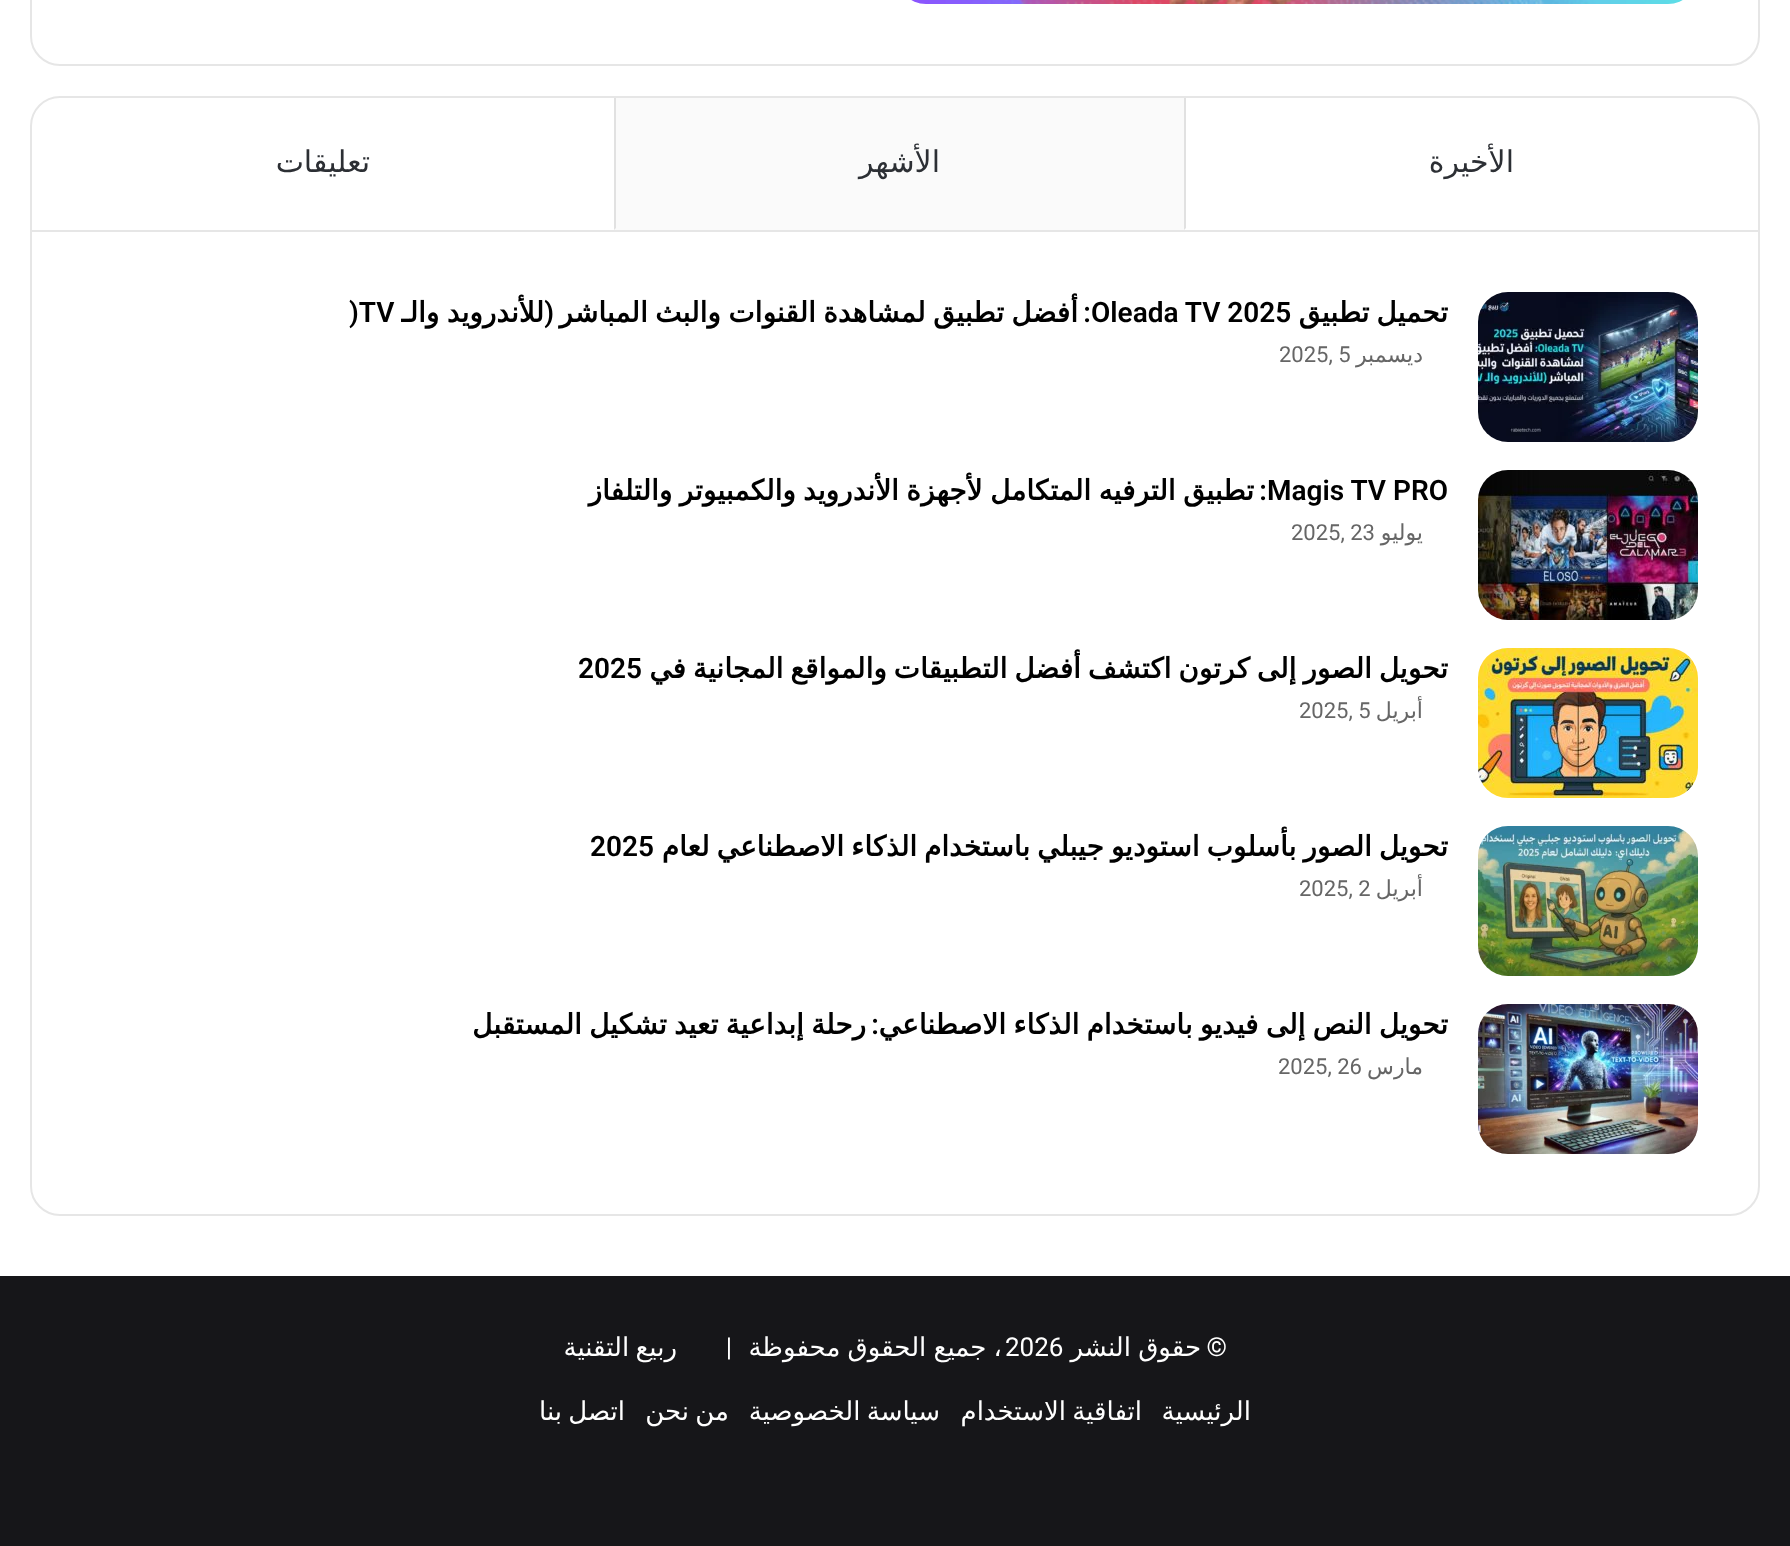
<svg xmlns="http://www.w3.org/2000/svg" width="1790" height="1546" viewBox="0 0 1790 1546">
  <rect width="100%" height="100%" fill="#ffffff"/>
  <rect x="31" y="-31" width="1728" height="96" rx="29" fill="none" stroke="#e6e6e6" stroke-width="2"/>
  <image x="911" y="0" width="772" height="4" href="img1.png"/>
  <rect x="31" y="97" width="1728" height="1118" rx="29" fill="none" stroke="#e6e6e6" stroke-width="2"/>
  <rect x="32" y="230" width="1726" height="2" fill="#e6e6e6"/>
  <path d="M1184 98H1186V228L1184 230Z" fill="#e1e1e1"/>
  <text x="1514" y="172" font-family="DejaVu Sans" font-size="30" direction="rtl" fill="#2c2f34">الأخيرة</text>
  <rect x="614" y="98" width="570" height="132" fill="#fafafa"/>
  <path d="M614 230V98H616V228Z" fill="#e1e1e1"/>
  <text x="940" y="172" font-family="DejaVu Sans" font-size="30" direction="rtl" fill="#2c2f34">الأشهر</text>
  <text x="370" y="172" font-family="DejaVu Sans" font-size="30" direction="rtl" fill="#2c2f34">تعليقات</text>
  <image x="1478" y="292" width="220" height="150" href="img2.png"/>
  <text x="1448" y="322" word-spacing="-2" font-family="DejaVu Sans" font-size="28" font-weight="bold" direction="rtl" fill="#000000">تحميل تطبيق</text>
  <text x="1091" y="322" font-family="Roboto" font-size="28" font-weight="600" fill="#000000">Oleada TV 2025</text>
  <text x="1091" y="322" font-family="Roboto" font-size="28" font-weight="600" direction="rtl" fill="#000000">:</text>
  <text x="1078" y="322" word-spacing="-1.5" font-family="DejaVu Sans" font-size="28" font-weight="bold" direction="rtl" fill="#000000">أفضل تطبيق لمشاهدة القنوات والبث المباشر</text>
  <text x="554" y="322" font-family="Roboto" font-size="28" font-weight="600" direction="rtl" fill="#000000">(</text>
  <text x="544" y="322" word-spacing="-1.5" font-family="DejaVu Sans" font-size="28" font-weight="bold" direction="rtl" fill="#000000">للأندرويد والـ</text>
  <text x="349" y="322" font-family="Roboto" font-size="28" font-weight="600" fill="#000000">)TV</text>
  <text x="1423" y="362" font-family="DejaVu Sans" font-size="22" direction="rtl" fill="#666666">ديسمبر</text>
  <text x="1279" y="362" font-family="Roboto" font-size="22" fill="#666666">2025, 5</text>
  <image x="1478" y="470" width="220" height="150" href="img3.png"/>
  <text x="1267" y="500" font-family="Roboto" font-size="28" font-weight="600" fill="#000000">Magis TV PRO</text>
  <text x="1254" y="500" word-spacing="-1.5" font-family="DejaVu Sans" font-size="28" font-weight="bold" direction="rtl" fill="#000000">تطبيق الترفيه المتكامل لأجهزة الأندرويد والكمبيوتر والتلفاز</text>
  <text x="1267" y="500" font-family="Roboto" font-size="28" font-weight="600" direction="rtl" fill="#000000">:</text>
  <text x="1423" y="540" font-family="DejaVu Sans" font-size="22" direction="rtl" fill="#666666">يوليو</text>
  <text x="1291" y="540" font-family="Roboto" font-size="22" fill="#666666">2025, 23</text>
  <image x="1478" y="648" width="220" height="150" href="img4.png"/>
  <text x="1448" y="678" word-spacing="-2" font-family="DejaVu Sans" font-size="28" font-weight="bold" direction="rtl" fill="#000000">تحويل الصور إلى كرتون اكتشف أفضل التطبيقات والمواقع المجانية في</text>
  <text x="578" y="678" font-family="Roboto" font-size="28" font-weight="600" fill="#000000">2025</text>
  <text x="1423" y="718" font-family="DejaVu Sans" font-size="22" direction="rtl" fill="#666666">أبريل</text>
  <text x="1299" y="718" font-family="Roboto" font-size="22" fill="#666666">2025, 5</text>
  <image x="1478" y="826" width="220" height="150" href="img5.png"/>
  <text x="1448" y="856" word-spacing="-2" font-family="DejaVu Sans" font-size="28" font-weight="bold" direction="rtl" fill="#000000">تحويل الصور بأسلوب استوديو جيبلي باستخدام الذكاء الاصطناعي لعام</text>
  <text x="590" y="856" font-family="Roboto" font-size="28" font-weight="600" fill="#000000">2025</text>
  <text x="1423" y="896" font-family="DejaVu Sans" font-size="22" direction="rtl" fill="#666666">أبريل</text>
  <text x="1299" y="896" font-family="Roboto" font-size="22" fill="#666666">2025, 2</text>
  <image x="1478" y="1004" width="220" height="150" href="img6.png"/>
  <text x="1448" y="1034" word-spacing="-1.75" font-family="DejaVu Sans" font-size="28" font-weight="bold" direction="rtl" fill="#000000">تحويل النص إلى فيديو باستخدام الذكاء الاصطناعي</text>
  <text x="879" y="1034" font-family="Roboto" font-size="28" font-weight="600" direction="rtl" fill="#000000">:</text>
  <text x="866" y="1034" word-spacing="-1.75" font-family="DejaVu Sans" font-size="28" font-weight="bold" direction="rtl" fill="#000000">رحلة إبداعية تعيد تشكيل المستقبل</text>
  <text x="1423" y="1074" font-family="DejaVu Sans" font-size="22" direction="rtl" fill="#666666">مارس</text>
  <text x="1278" y="1074" font-family="Roboto" font-size="22" fill="#666666">2025, 26</text>
  <rect x="0" y="1276" width="1790" height="270" fill="#161619"/>
  <text x="1227" y="1356" font-family="Roboto" font-size="26" direction="rtl" fill="#ffffff">©</text>
  <text x="1201" y="1356" word-spacing="-1" font-family="DejaVu Sans" font-size="26" direction="rtl" fill="#ffffff">حقوق النشر</text>
  <text x="1005" y="1356" font-family="Roboto" font-size="26" fill="#ffffff">2026</text>
  <text x="1002" y="1356" word-spacing="-1" font-family="DejaVu Sans" font-size="26" direction="rtl" fill="#ffffff">، جميع الحقوق محفوظة</text>
  <text x="732" y="1356" font-family="Roboto" font-size="26" direction="rtl" fill="#ffffff">|</text>
  <text x="677" y="1356" word-spacing="-2" font-family="DejaVu Sans" font-size="26" direction="rtl" fill="#ffffff">ربيع التقنية</text>
  <text x="1251" y="1420" font-family="DejaVu Sans" font-size="26" direction="rtl" fill="#ffffff">الرئيسية</text>
  <text x="1142" y="1420" word-spacing="-2" font-family="DejaVu Sans" font-size="26" direction="rtl" fill="#ffffff">اتفاقية الاستخدام</text>
  <text x="940" y="1420" word-spacing="-2" font-family="DejaVu Sans" font-size="26" direction="rtl" fill="#ffffff">سياسة الخصوصية</text>
  <text x="729" y="1420" word-spacing="-2" font-family="DejaVu Sans" font-size="26" direction="rtl" fill="#ffffff">من نحن</text>
  <text x="625" y="1420" word-spacing="-2" font-family="DejaVu Sans" font-size="26" direction="rtl" fill="#ffffff">اتصل بنا</text>
</svg>
